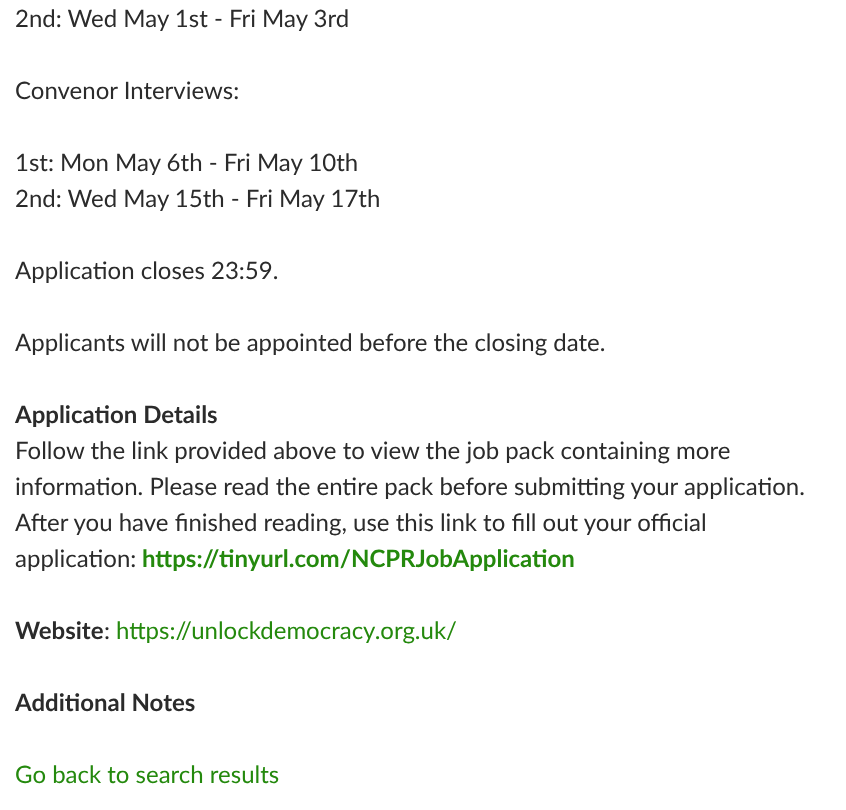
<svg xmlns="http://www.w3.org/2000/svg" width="846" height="810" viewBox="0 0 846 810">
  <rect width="100%" height="100%" fill="#ffffff"/>
  <text x="15" y="27" font-family="Lato" font-size="24" fill="#2b2b2b">2nd: Wed May 1st - Fri May 3rd</text>
  <text x="15" y="99" font-family="Lato" font-size="24" fill="#2b2b2b">Convenor Interviews:</text>
  <text x="15" y="171" font-family="Lato" font-size="24" fill="#2b2b2b">1st: Mon May 6th - Fri May 10th</text>
  <text x="15" y="207" font-family="Lato" font-size="24" fill="#2b2b2b">2nd: Wed May 15th - Fri May 17th</text>
  <text x="15" y="279" font-family="Lato" font-size="24" fill="#2b2b2b">Application closes 23:59.</text>
  <text x="15" y="351" font-family="Lato" font-size="24" fill="#2b2b2b">Applicants will not be appointed before the closing date.</text>
  <text x="15" y="423" font-family="Lato" font-size="24" font-weight="bold" fill="#2b2b2b">Application Details</text>
  <text x="15" y="459" font-family="Lato" font-size="24" fill="#2b2b2b">Follow the link provided above to view the job pack containing more</text>
  <text x="15" y="495" font-family="Lato" font-size="24" fill="#2b2b2b">information. Please read the entire pack before submitting your application.</text>
  <text x="15" y="531" font-family="Lato" font-size="24" fill="#2b2b2b">After you have finished reading, use this link to fill out your official</text>
  <text x="15" y="567" font-family="Lato" font-size="24" fill="#2b2b2b">application:</text>
  <text x="142" y="567" font-family="Lato" font-size="24" font-weight="bold" fill="#24890d">https://tinyurl.com/NCPRJobApplication</text>
  <text x="15" y="639" font-family="Lato" font-size="24" font-weight="bold" fill="#2b2b2b">Website</text>
  <text x="104" y="639" font-family="Lato" font-size="24" fill="#2b2b2b">:</text>
  <text x="116" y="639" font-family="Lato" font-size="24" fill="#24890d">https://unlockdemocracy.org.uk/</text>
  <text x="15" y="711" font-family="Lato" font-size="24" font-weight="bold" fill="#2b2b2b">Additional Notes</text>
  <text x="15" y="783" font-family="Lato" font-size="24" fill="#24890d">Go back to search results</text>
</svg>
